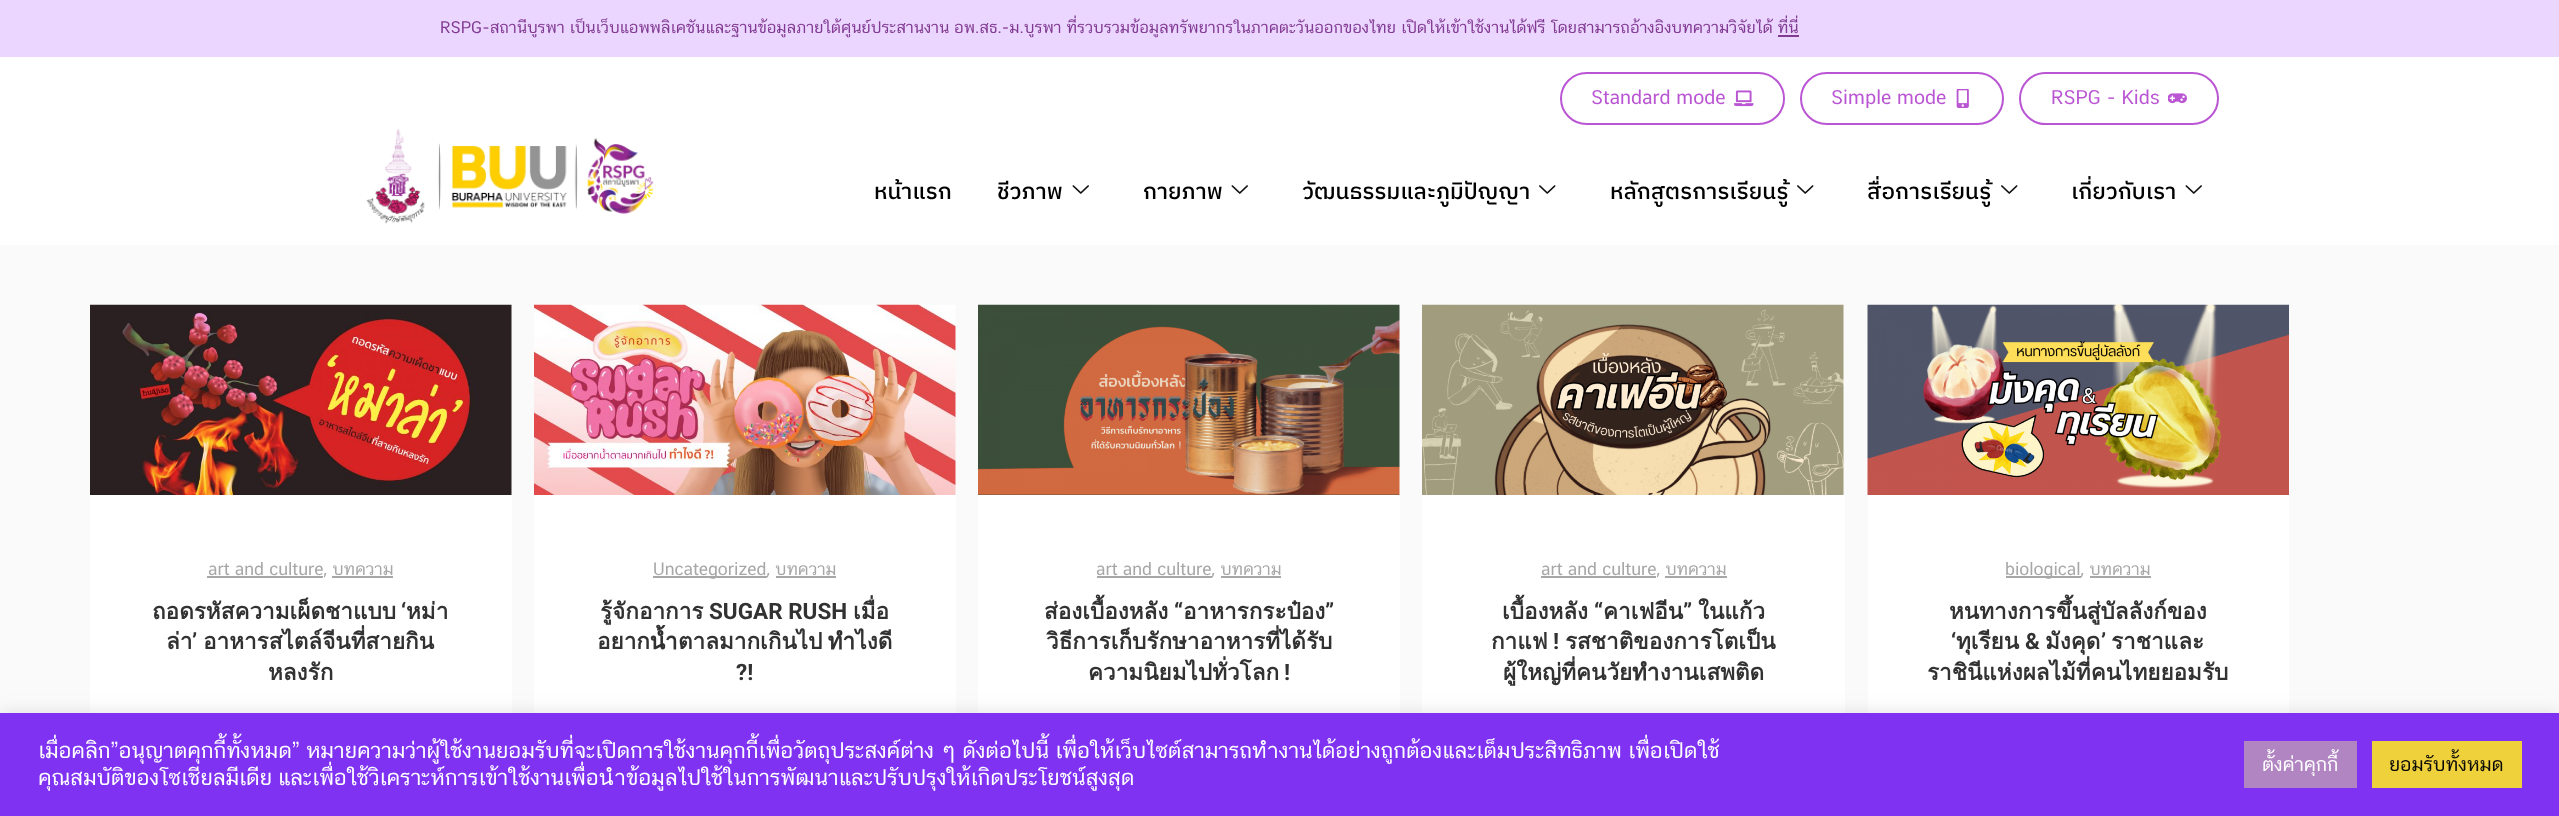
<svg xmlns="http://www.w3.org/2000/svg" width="2559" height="816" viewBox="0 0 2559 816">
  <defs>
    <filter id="blur1" x="-50%" y="-200%" width="200%" height="500%"><feGaussianBlur stdDeviation="7.5"/></filter>
  </defs>
  <rect width="100%" height="100%" fill="#fafafa"/>
  <rect x="0" y="0" width="2559" height="57" fill="#ebd6ff"/>
  <text x="440" y="33" font-family="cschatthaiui" font-size="16.5" fill="#823b93">RSPG-สถานีบูรพา เป็นเว็บแอพพลิเคชันและฐานข้อมูลภายใต้ศูนย์ประสานงาน อพ.สธ.-ม.บูรพา ที่รวบรวมข้อมูลทรัพยากรในภาคตะวันออกของไทย เปิดให้เข้าใช้งานได้ฟรี โดยสามารถอ้างอิงบทความวิจัยได้ ที่นี่</text>
  <rect x="1778" y="35" width="21" height="2" fill="#823b93"/>
  <rect x="0" y="57" width="2559" height="188" fill="#ffffff"/>
  <image x="366" y="128" width="288" height="96" href="img1.png"/>
  <rect x="1561" y="73" width="223" height="51" rx="25.5" fill="none" stroke="#ba55d3" stroke-width="2"/>
  <text x="1591" y="104" font-family="cschatthaiui" font-size="19.5" fill="#ba55d3">Standard mode</text>
  <image x="1734" y="90" width="20" height="17" href="img2.png"/>
  <rect x="1801" y="73" width="202" height="51" rx="25.5" fill="none" stroke="#ba55d3" stroke-width="2"/>
  <text x="1831" y="104" font-family="cschatthaiui" font-size="19.5" fill="#ba55d3">Simple mode</text>
  <image x="1956" y="89" width="13" height="19" href="img3.png"/>
  <rect x="2020" y="73" width="198" height="51" rx="25.5" fill="none" stroke="#ba55d3" stroke-width="2"/>
  <text x="2051" y="104" font-family="cschatthaiui" font-size="19.5" fill="#ba55d3">RSPG - Kids</text>
  <image x="2168" y="93" width="19" height="11" href="img4.png"/>
  <text x="874" y="199" font-family="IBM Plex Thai" font-size="22.5" font-weight="500" fill="#000000">หน้าแรก</text>
  <text x="997" y="199" font-family="IBM Plex Thai" font-size="22.5" font-weight="500" fill="#000000">ชีวภาพ</text>
  <image x="1072" y="185" width="17" height="9" href="img5.png"/>
  <text x="1143" y="199" font-family="IBM Plex Thai" font-size="22.5" font-weight="500" fill="#000000">กายภาพ</text>
  <image x="1231" y="185" width="17" height="9" href="img5.png"/>
  <text x="1302" y="199" font-family="IBM Plex Thai" font-size="22.5" font-weight="500" fill="#000000">วัฒนธรรมและภูมิปัญญา</text>
  <image x="1539" y="185" width="17" height="9" href="img6.png"/>
  <text x="1610" y="199" font-family="IBM Plex Thai" font-size="22.5" font-weight="500" fill="#000000">หลักสูตรการเรียนรู้</text>
  <image x="1797" y="185" width="17" height="9" href="img6.png"/>
  <text x="1867" y="199" font-family="IBM Plex Thai" font-size="22.5" font-weight="500" fill="#000000">สื่อการเรียนรู้</text>
  <image x="2001" y="185" width="17" height="9" href="img6.png"/>
  <text x="2071" y="199" font-family="IBM Plex Thai" font-size="22.5" font-weight="500" fill="#000000">เกี่ยวกับเรา</text>
  <image x="2185" y="185" width="17" height="9" href="img5.png"/>
  <image x="90" y="304" width="422" height="191" href="img7.png"/>
  <rect x="90" y="495" width="422" height="218" fill="#ffffff"/>
  <rect x="207" y="576" width="116" height="2" fill="#a7a7a7"/>
  <text x="208" y="575" font-family="cschatthaiui" font-size="17.5" fill="#a7a7a7">art and culture, บทความ</text>
  <rect x="332" y="576" width="61" height="2" fill="#a7a7a7"/>
  <text x="152" y="619" font-family="Loma" font-size="22.5" font-weight="bold" fill="#323232">ถอดรหัสความเผ็ดชาแบบ</text>
  <text x="401" y="619" font-family="Roboto" font-size="22.5" font-weight="bold" fill="#323232">‘</text>
  <text x="406" y="619" font-family="Loma" font-size="22.5" font-weight="bold" fill="#323232">หม่า</text>
  <text x="166" y="649" font-family="Loma" font-size="22.5" font-weight="bold" fill="#323232">ล่า</text>
  <text x="192" y="649" font-family="Roboto" font-size="22.5" font-weight="bold" fill="#323232">’</text>
  <text x="203" y="649" font-family="Loma" font-size="22.5" font-weight="bold" fill="#323232">อาหารสไตล์จีนที่สายกิน</text>
  <text x="268" y="680" font-family="Loma" font-size="22.5" font-weight="bold" fill="#323232">หลงรัก</text>
  <image x="534" y="304" width="422" height="191" href="img8.png"/>
  <rect x="534" y="495" width="422" height="218" fill="#ffffff"/>
  <rect x="653" y="576" width="114" height="2" fill="#a7a7a7"/>
  <text x="653" y="575" font-family="cschatthaiui" font-size="17.5" fill="#a7a7a7">Uncategorized, บทความ</text>
  <rect x="776" y="576" width="60" height="2" fill="#a7a7a7"/>
  <text x="600" y="619" font-family="Loma" font-size="22.5" font-weight="bold" fill="#323232">รู้จักอาการ</text>
  <text x="709" y="619" font-family="Roboto" font-size="22.5" font-weight="bold" fill="#323232">SUGAR RUSH</text>
  <text x="853" y="619" font-family="Loma" font-size="22.5" font-weight="bold" fill="#323232">เมื่อ</text>
  <text x="597" y="649" word-spacing="-2" font-family="Loma" font-size="22.5" font-weight="bold" fill="#323232">อยากน้ำตาลมากเกินไป ทำไงดี</text>
  <text x="736" y="680" font-family="Roboto" font-size="22.5" font-weight="bold" fill="#323232">?!</text>
  <image x="978" y="304" width="422" height="191" href="img9.png"/>
  <rect x="978" y="495" width="422" height="218" fill="#ffffff"/>
  <rect x="1097" y="576" width="115" height="2" fill="#a7a7a7"/>
  <text x="1096" y="575" font-family="cschatthaiui" font-size="17.5" fill="#a7a7a7">art and culture, บทความ</text>
  <rect x="1221" y="576" width="60" height="2" fill="#a7a7a7"/>
  <text x="1044" y="619" font-family="Loma" font-size="22.5" font-weight="bold" fill="#323232">ส่องเบื้องหลัง</text>
  <text x="1174" y="619" font-family="Roboto" font-size="22.5" font-weight="bold" fill="#323232">“</text>
  <text x="1183" y="619" font-family="Loma" font-size="22.5" font-weight="bold" fill="#323232">อาหารกระป๋อง</text>
  <text x="1325" y="619" font-family="Roboto" font-size="22.5" font-weight="bold" fill="#323232">”</text>
  <text x="1046" y="649" font-family="Loma" font-size="22.5" font-weight="bold" fill="#323232">วิธีการเก็บรักษาอาหารที่ได้รับ</text>
  <text x="1088" y="680" font-family="Loma" font-size="22.5" font-weight="bold" fill="#323232">ความนิยมไปทั่วโลก</text>
  <text x="1284" y="680" font-family="Roboto" font-size="22.5" font-weight="bold" fill="#323232">!</text>
  <image x="1422" y="304" width="422" height="191" href="img10.png"/>
  <rect x="1422" y="495" width="423" height="218" fill="#ffffff"/>
  <rect x="1541" y="576" width="115" height="2" fill="#a7a7a7"/>
  <text x="1541" y="575" font-family="cschatthaiui" font-size="17.5" fill="#a7a7a7">art and culture, บทความ</text>
  <rect x="1665" y="576" width="62" height="2" fill="#a7a7a7"/>
  <text x="1502" y="619" font-family="Loma" font-size="22.5" font-weight="bold" fill="#323232">เบื้องหลัง</text>
  <text x="1594" y="619" font-family="Roboto" font-size="22.5" font-weight="bold" fill="#323232">“</text>
  <text x="1603" y="619" font-family="Loma" font-size="22.5" font-weight="bold" fill="#323232">คาเฟอีน</text>
  <text x="1683" y="619" font-family="Roboto" font-size="22.5" font-weight="bold" fill="#323232">”</text>
  <text x="1698" y="619" font-family="Loma" font-size="22.5" font-weight="bold" fill="#323232">ในแก้ว</text>
  <text x="1491" y="649" font-family="Loma" font-size="22.5" font-weight="bold" fill="#323232">กาแฟ</text>
  <text x="1553" y="649" font-family="Roboto" font-size="22.5" font-weight="bold" fill="#323232">!</text>
  <text x="1565" y="649" font-family="Loma" font-size="22.5" font-weight="bold" fill="#323232">รสชาติของการโตเป็น</text>
  <text x="1503" y="680" font-family="Loma" font-size="22.5" font-weight="bold" fill="#323232">ผู้ใหญ่ที่คนวัยทำงานเสพติด</text>
  <image x="1867" y="304" width="422" height="191" href="img11.png"/>
  <rect x="1868" y="495" width="421" height="218" fill="#ffffff"/>
  <rect x="2006" y="576" width="75" height="2" fill="#a7a7a7"/>
  <text x="2005" y="575" font-family="cschatthaiui" font-size="17.5" fill="#a7a7a7">biological, บทความ</text>
  <rect x="2090" y="576" width="61" height="2" fill="#a7a7a7"/>
  <text x="1949" y="619" font-family="Loma" font-size="22.5" font-weight="bold" fill="#323232">หนทางการขึ้นสู่บัลลังก์ของ</text>
  <text x="1951" y="649" font-family="Roboto" font-size="22.5" font-weight="bold" fill="#323232">‘</text>
  <text x="1956" y="649" font-family="Loma" font-size="22.5" font-weight="bold" fill="#323232">ทุเรียน</text>
  <text x="2025" y="649" font-family="Roboto" font-size="22.5" font-weight="bold" fill="#323232">&amp;</text>
  <text x="2045" y="649" font-family="Loma" font-size="22.5" font-weight="bold" fill="#323232">มังคุด</text>
  <text x="2101" y="649" font-family="Roboto" font-size="22.5" font-weight="bold" fill="#323232">’</text>
  <text x="2111" y="649" font-family="Loma" font-size="22.5" font-weight="bold" fill="#323232">ราชาและ</text>
  <text x="1927" y="680" font-family="Loma" font-size="22.5" font-weight="bold" fill="#323232">ราชินีแห่งผลไม้ที่คนไทยยอมรับ</text>
  <rect x="0" y="711" width="2559" height="104" fill="#acabab" fill-opacity="0.3" filter="url(#blur1)"/>
  <rect x="0" y="713" width="2559" height="103" fill="#7f32f2"/>
  <text x="38" y="758" word-spacing="-0.25" font-family="cschatthaiui" font-size="22" fill="#ffffff">เมื่อคลิก”อนุญาตคุกกี้ทั้งหมด” หมายความว่าผู้ใช้งานยอมรับที่จะเปิดการใช้งานคุกกี้เพื่อวัตถุประสงค์ต่าง ๆ ดังต่อไปนี้ เพื่อให้เว็บไซต์สามารถทำงานได้อย่างถูกต้องและเต็มประสิทธิภาพ เพื่อเปิดใช้</text>
  <text x="38" y="785" word-spacing="-1" font-family="cschatthaiui" font-size="22" fill="#ffffff">คุณสมบัติของโซเชียลมีเดีย และเพื่อใช้วิเคราะห์การเข้าใช้งานเพื่อนำข้อมูลไปใช้ในการพัฒนาและปรับปรุงให้เกิดประโยชน์สูงสุด</text>
  <rect x="2244" y="741" width="113" height="47" fill="#b185c1"/>
  <text x="2262" y="771" font-family="cschatthaiui" font-size="19.5" fill="#ffffff">ตั้งค่าคุกกี้</text>
  <rect x="2372" y="741" width="150" height="47" fill="#efd13b"/>
  <text x="2389" y="771" font-family="cschatthaiui" font-size="19.5" fill="#0a0a0a">ยอมรับทั้งหมด</text>
</svg>
